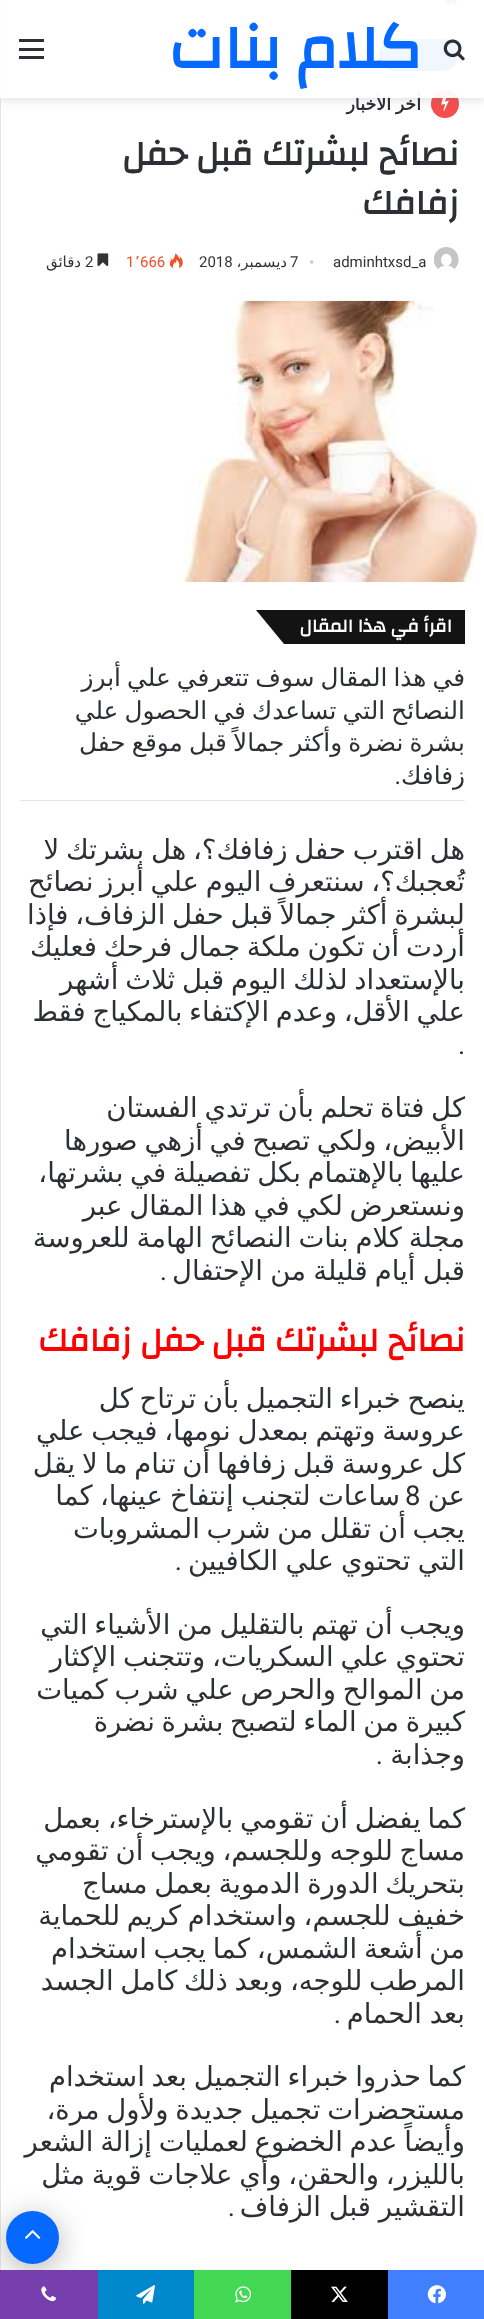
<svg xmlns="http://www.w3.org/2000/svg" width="484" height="2319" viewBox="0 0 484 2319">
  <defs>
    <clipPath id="clip1"><path d="M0 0H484V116H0ZM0 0H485V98H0Z" clip-rule="evenodd"/></clipPath>
    <filter id="blur1" x="-50%" y="-200%" width="200%" height="500%"><feGaussianBlur stdDeviation="5"/></filter>
    <filter id="blur2" x="-50%" y="-200%" width="200%" height="500%"><feGaussianBlur stdDeviation="15.5"/></filter>
  </defs>
  <rect width="100%" height="100%" fill="#ffffff"/>
  <rect x="0.5" y="-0.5" width="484" height="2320" fill="none" stroke="#e6e6e6"/>
  <image x="444" y="0" width="14" height="6" href="img2.png"/>
  <rect x="379" y="39" width="80" height="32" rx="16" fill="#0669ff"/>
  <circle cx="445" cy="104" r="14" fill="#f64e4e"/>
  <image x="441" y="97" width="8" height="14" href="img3.png"/>
  <g clip-path="url(#clip1)">
    <rect x="0" y="3" width="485" height="97" fill="#636363" fill-opacity="0.2" filter="url(#blur1)"/>
  </g>
  <text x="421" y="110" word-spacing="-1" font-family="DejaVu Sans" font-size="17.5" font-weight="bold" direction="rtl" fill="#2c2f34">أخر الأخبار</text>
  <rect x="0" y="0" width="484" height="98" fill="#ffffff" fill-opacity="0.95"/>
  <image x="443" y="39" width="22" height="22" href="img1.png"/>
  <text x="422" y="68" font-family="Changa" font-size="62.5" font-weight="bold" direction="rtl" fill="#0669ff">كلام بنات</text>
  <rect x="19" y="48" width="25" height="3" fill="#2c2f34"/>
  <rect x="19" y="39" width="25" height="3" fill="#2c2f34"/>
  <rect x="19" y="56" width="25" height="3" fill="#2c2f34"/>
  <text x="459" y="165" font-family="Changa" font-size="35" font-weight="bold" direction="rtl" fill="#2c2f34">نصائح لبشرتك قبل حفل</text>
  <text x="459" y="214" font-family="Changa" font-size="35" font-weight="bold" direction="rtl" fill="#2c2f34">زفافك</text>
  <image x="434" y="247" width="25" height="22" href="img4.png"/>
  <text x="333" y="267" font-family="Roboto" font-size="15" fill="#333333">adminhtxsd_a</text>
  <text x="309" y="267" font-family="Liberation Serif" font-size="15" fill="#cccccc">•</text>
  <text x="290" y="267" font-family="Roboto" font-size="15" fill="#333333">7</text>
  <text x="287" y="267" font-family="DejaVu Sans" font-size="15" direction="rtl" fill="#333333">ديسمبر،</text>
  <text x="199" y="267" font-family="Roboto" font-size="15" fill="#333333">2018</text>
  <image x="169" y="253" width="14" height="16" href="img5.png"/>
  <text x="140" y="267" font-family="Roboto" font-size="15" fill="#f3502a">666</text>
  <text x="135" y="267" font-family="DejaVu Sans" font-size="15" fill="#f3502a">٬</text>
  <text x="126" y="267" font-family="Roboto" font-size="15" fill="#f3502a">1</text>
  <image x="97" y="253" width="12" height="14" href="img6.png"/>
  <text x="85" y="267" font-family="Roboto" font-size="15" fill="#333333">2</text>
  <text x="81" y="267" font-family="DejaVu Sans" font-size="15" direction="rtl" fill="#333333">دقائق</text>
  <image x="183" y="300" width="300" height="282" href="img7.png"/>
  <rect x="380" y="610" width="85" height="34" fill="#131313"/>
  <path d="M256 610H380L408 644H284Z" fill="#131313"/>
  <text x="452" y="632" font-family="Changa" font-size="18.75" font-weight="bold" direction="rtl" fill="#ffffff">اقرأ في هذا المقال</text>
  <rect x="20" y="800" width="445" height="1" fill="#e6e6e6"/>
  <text x="465" y="686" word-spacing="-1.75" font-family="DejaVu Sans" font-size="24.75" direction="rtl" fill="#2c2f34">في هذا المقال سوف تتعرفي علي أبرز</text>
  <text x="465" y="719" word-spacing="-1.75" font-family="DejaVu Sans" font-size="24.75" direction="rtl" fill="#2c2f34">النصائح التي تساعدك في الحصول علي</text>
  <text x="465" y="751" word-spacing="-1.75" font-family="DejaVu Sans" font-size="24.75" direction="rtl" fill="#2c2f34">بشرة نضرة وأكثر جمالاً قبل موقع حفل</text>
  <text x="465" y="784" font-family="DejaVu Sans" font-size="24.75" direction="rtl" fill="#2c2f34">زفافك</text>
  <text x="401" y="784" font-family="Roboto" font-size="24.75" direction="rtl" fill="#2c2f34">.</text>
  <text x="465" y="859" word-spacing="-2" font-family="DejaVu Sans" font-size="27.5" direction="rtl" fill="#2c2f34">هل اقترب حفل زفافك؟، هل بشرتك لا</text>
  <text x="465" y="891" word-spacing="-2" font-family="DejaVu Sans" font-size="27.5" direction="rtl" fill="#2c2f34">تُعجبك؟، سنتعرف اليوم علي أبرز نصائح</text>
  <text x="465" y="924" word-spacing="-2" font-family="DejaVu Sans" font-size="27.5" direction="rtl" fill="#2c2f34">لبشرة أكثر جمالاً قبل حفل الزفاف، فإذا</text>
  <text x="465" y="956" word-spacing="-2" font-family="DejaVu Sans" font-size="27.5" direction="rtl" fill="#2c2f34">أردت أن تكون ملكة جمال فرحك فعليك</text>
  <text x="465" y="989" word-spacing="-2" font-family="DejaVu Sans" font-size="27.5" direction="rtl" fill="#2c2f34">بالإستعداد لذلك اليوم قبل ثلاث أشهر</text>
  <text x="465" y="1021" word-spacing="-2" font-family="DejaVu Sans" font-size="27.5" direction="rtl" fill="#2c2f34">علي الأقل، وعدم الإكتفاء بالمكياج فقط</text>
  <text x="458" y="1054" font-family="Roboto" font-size="27.5" fill="#2c2f34">.</text>
  <text x="465" y="1117" word-spacing="-2" font-family="DejaVu Sans" font-size="27.5" direction="rtl" fill="#2c2f34">كل فتاة تحلم بأن ترتدي الفستان</text>
  <text x="465" y="1150" word-spacing="-2" font-family="DejaVu Sans" font-size="27.5" direction="rtl" fill="#2c2f34">الأبيض، ولكي تصبح في أزهي صورها</text>
  <text x="465" y="1182" word-spacing="-2" font-family="DejaVu Sans" font-size="27.5" direction="rtl" fill="#2c2f34">عليها بالإهتمام بكل تفصيلة في بشرتها،</text>
  <text x="465" y="1215" word-spacing="-2" font-family="DejaVu Sans" font-size="27.5" direction="rtl" fill="#2c2f34">ونستعرض لكي في هذا المقال عبر</text>
  <text x="465" y="1247" word-spacing="-2" font-family="DejaVu Sans" font-size="27.5" direction="rtl" fill="#2c2f34">مجلة كلام بنات النصائح الهامة للعروسة</text>
  <text x="465" y="1280" word-spacing="-1.5" font-family="DejaVu Sans" font-size="27.5" direction="rtl" fill="#2c2f34">قبل أيام قليلة من الإحتفال</text>
  <text x="167" y="1280" font-family="Roboto" font-size="27.5" direction="rtl" fill="#2c2f34">.</text>
  <text x="465" y="1351" font-family="Changa" font-size="33.75" font-weight="bold" direction="rtl" fill="#ff0000">نصائح لبشرتك قبل حفل زفافك</text>
  <text x="465" y="1408" word-spacing="-2" font-family="DejaVu Sans" font-size="27.5" direction="rtl" fill="#2c2f34">ينصح خبراء التجميل بأن ترتاح كل</text>
  <text x="465" y="1440" word-spacing="-2" font-family="DejaVu Sans" font-size="27.5" direction="rtl" fill="#2c2f34">عروسة وتهتم بمعدل نومها، فيجب علي</text>
  <text x="465" y="1473" word-spacing="-2" font-family="DejaVu Sans" font-size="27.5" direction="rtl" fill="#2c2f34">كل عروسة قبل زفافها أن تنام ما لا يقل</text>
  <text x="465" y="1505" font-family="DejaVu Sans" font-size="27.5" direction="rtl" fill="#2c2f34">عن</text>
  <text x="405" y="1505" font-family="Roboto" font-size="27.5" fill="#2c2f34">8</text>
  <text x="400" y="1505" word-spacing="-1.5" font-family="DejaVu Sans" font-size="27.5" direction="rtl" fill="#2c2f34">ساعات لتجنب إنتفاخ عينها، كما</text>
  <text x="465" y="1538" word-spacing="-2" font-family="DejaVu Sans" font-size="27.5" direction="rtl" fill="#2c2f34">يجب أن تقلل من شرب المشروبات</text>
  <text x="465" y="1570" word-spacing="-1.5" font-family="DejaVu Sans" font-size="27.5" direction="rtl" fill="#2c2f34">التي تحتوي علي الكافيين</text>
  <text x="182" y="1570" font-family="Roboto" font-size="27.5" direction="rtl" fill="#2c2f34">.</text>
  <text x="465" y="1634" word-spacing="-2" font-family="DejaVu Sans" font-size="27.5" direction="rtl" fill="#2c2f34">ويجب أن تهتم بالتقليل من الأشياء التي</text>
  <text x="465" y="1666" word-spacing="-2" font-family="DejaVu Sans" font-size="27.5" direction="rtl" fill="#2c2f34">تحتوي علي السكريات، وتتجنب الإكثار</text>
  <text x="465" y="1699" word-spacing="-2" font-family="DejaVu Sans" font-size="27.5" direction="rtl" fill="#2c2f34">من الموالح والحرص علي شرب كميات</text>
  <text x="465" y="1731" word-spacing="-2" font-family="DejaVu Sans" font-size="27.5" direction="rtl" fill="#2c2f34">كبيرة من الماء لتصبح بشرة نضرة</text>
  <text x="465" y="1764" font-family="DejaVu Sans" font-size="27.5" direction="rtl" fill="#2c2f34">وجذابة</text>
  <text x="383" y="1764" font-family="Roboto" font-size="27.5" direction="rtl" fill="#2c2f34">.</text>
  <text x="465" y="1828" word-spacing="-2" font-family="DejaVu Sans" font-size="27.5" direction="rtl" fill="#2c2f34">كما يفضل أن تقومي بالإسترخاء، بعمل</text>
  <text x="465" y="1860" word-spacing="-2" font-family="DejaVu Sans" font-size="27.5" direction="rtl" fill="#2c2f34">مساج للوجه وللجسم، ويجب أن تقومي</text>
  <text x="465" y="1893" word-spacing="-2" font-family="DejaVu Sans" font-size="27.5" direction="rtl" fill="#2c2f34">بتحريك الدورة الدموية بعمل مساج</text>
  <text x="465" y="1925" word-spacing="-2" font-family="DejaVu Sans" font-size="27.5" direction="rtl" fill="#2c2f34">خفيف للجسم، واستخدام كريم للحماية</text>
  <text x="465" y="1958" word-spacing="-2" font-family="DejaVu Sans" font-size="27.5" direction="rtl" fill="#2c2f34">من أشعة الشمس، كما يجب استخدام</text>
  <text x="465" y="1990" word-spacing="-2" font-family="DejaVu Sans" font-size="27.5" direction="rtl" fill="#2c2f34">المرطب للوجه، وبعد ذلك كامل الجسد</text>
  <text x="465" y="2023" word-spacing="-1" font-family="DejaVu Sans" font-size="27.5" direction="rtl" fill="#2c2f34">بعد الحمام</text>
  <text x="341" y="2023" font-family="Roboto" font-size="27.5" direction="rtl" fill="#2c2f34">.</text>
  <text x="465" y="2086" word-spacing="-2" font-family="DejaVu Sans" font-size="27.5" direction="rtl" fill="#2c2f34">كما حذروا خبراء التجميل بعد استخدام</text>
  <text x="465" y="2119" word-spacing="-2" font-family="DejaVu Sans" font-size="27.5" direction="rtl" fill="#2c2f34">مستحضرات تجميل جديدة ولأول مرة،</text>
  <text x="465" y="2151" word-spacing="-2" font-family="DejaVu Sans" font-size="27.5" direction="rtl" fill="#2c2f34">وأيضاً عدم الخضوع لعمليات إزالة الشعر</text>
  <text x="465" y="2184" word-spacing="-2" font-family="DejaVu Sans" font-size="27.5" direction="rtl" fill="#2c2f34">بالليزر، والحقن، وأي علاجات قوية مثل</text>
  <text x="465" y="2216" word-spacing="-1" font-family="DejaVu Sans" font-size="27.5" direction="rtl" fill="#2c2f34">التقشير قبل الزفاف</text>
  <text x="235" y="2216" font-family="Roboto" font-size="27.5" direction="rtl" fill="#2c2f34">.</text>
  <rect x="6" y="2218" width="53" height="52" rx="26" fill="#000000" fill-opacity="0.3" filter="url(#blur2)"/>
  <circle cx="32.5" cy="2237.5" r="26.5" fill="#0669ff"/>
  <image x="25" y="2230" width="16" height="9" href="img8.png"/>
  <rect x="388" y="2270" width="96" height="49" fill="#4080ff"/>
  <image x="427" y="2285" width="19" height="19" href="img9.png"/>
  <rect x="291" y="2270" width="97" height="49" fill="#000000"/>
  <image x="331" y="2286" width="17" height="16" href="img10.png"/>
  <rect x="194" y="2270" width="97" height="49" fill="#43d854"/>
  <image x="235" y="2286" width="17" height="17" href="img11.png"/>
  <rect x="98" y="2270" width="96" height="49" fill="#0088cc"/>
  <image x="136" y="2285" width="19" height="19" href="img12.png"/>
  <rect x="0" y="2270" width="98" height="49" fill="#773ead"/>
  <image x="41" y="2286" width="15" height="16" href="img13.png"/>
</svg>
